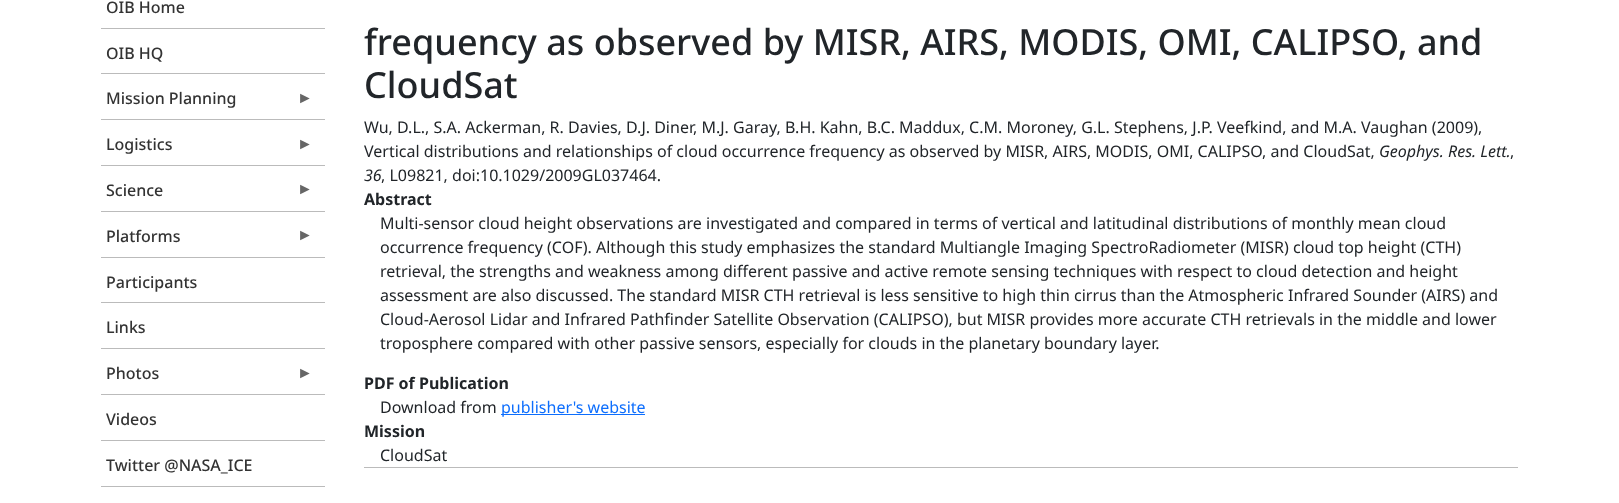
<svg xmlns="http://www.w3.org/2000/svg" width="1619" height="503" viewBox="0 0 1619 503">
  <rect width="100%" height="100%" fill="#ffffff"/>
  <rect x="101" y="28" width="224" height="1" fill="#bbbbbb"/>
  <text x="106" y="13" font-family="Noto Sans" font-size="16" font-weight="500" fill="#333333">OIB Home</text>
  <rect x="101" y="73" width="224" height="1" fill="#bbbbbb"/>
  <text x="106" y="59" font-family="Noto Sans" font-size="16" font-weight="500" fill="#333333">OIB HQ</text>
  <rect x="101" y="119" width="224" height="1" fill="#bbbbbb"/>
  <text x="106" y="104" font-family="Noto Sans" font-size="16" font-weight="500" fill="#333333">Mission Planning</text>
  <text x="297" y="103" font-family="Liberation Sans" font-size="16" fill="#666666">►</text>
  <rect x="101" y="165" width="224" height="1" fill="#bbbbbb"/>
  <text x="106" y="150" font-family="Noto Sans" font-size="16" font-weight="500" fill="#333333">Logistics</text>
  <text x="297" y="149" font-family="Liberation Sans" font-size="16" fill="#666666">►</text>
  <rect x="101" y="211" width="224" height="1" fill="#bbbbbb"/>
  <text x="106" y="196" font-family="Noto Sans" font-size="16" font-weight="500" fill="#333333">Science</text>
  <text x="297" y="194" font-family="Liberation Sans" font-size="16" fill="#666666">►</text>
  <rect x="101" y="257" width="224" height="1" fill="#bbbbbb"/>
  <text x="106" y="242" font-family="Noto Sans" font-size="16" font-weight="500" fill="#333333">Platforms</text>
  <text x="297" y="240" font-family="Liberation Sans" font-size="16" fill="#666666">►</text>
  <rect x="101" y="302" width="224" height="1" fill="#bbbbbb"/>
  <text x="106" y="288" font-family="Noto Sans" font-size="16" font-weight="500" fill="#333333">Participants</text>
  <rect x="101" y="348" width="224" height="1" fill="#bbbbbb"/>
  <text x="106" y="333" font-family="Noto Sans" font-size="16" font-weight="500" fill="#333333">Links</text>
  <rect x="101" y="394" width="224" height="1" fill="#bbbbbb"/>
  <text x="106" y="379" font-family="Noto Sans" font-size="16" font-weight="500" fill="#333333">Photos</text>
  <text x="297" y="378" font-family="Liberation Sans" font-size="16" fill="#666666">►</text>
  <rect x="101" y="440" width="224" height="1" fill="#bbbbbb"/>
  <text x="106" y="425" font-family="Noto Sans" font-size="16" font-weight="500" fill="#333333">Videos</text>
  <rect x="101" y="486" width="224" height="1" fill="#bbbbbb"/>
  <text x="106" y="471" font-family="Noto Sans" font-size="16" font-weight="500" fill="#333333">Twitter @NASA_ICE</text>
  <text x="364" y="55" font-family="Noto Sans" font-size="36" font-weight="500" fill="#212529">frequency as observed by MISR, AIRS, MODIS, OMI, CALIPSO, and</text>
  <text x="364" y="98" font-family="Noto Sans" font-size="36" font-weight="500" fill="#212529">CloudSat</text>
  <text x="364" y="133" font-family="Noto Sans" font-size="16" fill="#212529">Wu, D.L., S.A. Ackerman, R. Davies, D.J. Diner, M.J. Garay, B.H. Kahn, B.C. Maddux, C.M. Moroney, G.L. Stephens, J.P. Veefkind, and M.A. Vaughan (2009),</text>
  <text x="364" y="157" font-family="Noto Sans" font-size="16" fill="#212529">Vertical distributions and relationships of cloud occurrence frequency as observed by MISR, AIRS, MODIS, OMI, CALIPSO, and CloudSat,</text>
  <text x="1379" y="157" font-family="Noto Sans" font-size="16" font-style="italic" fill="#212529">Geophys. Res. Lett.</text>
  <text x="1510" y="157" font-family="Noto Sans" font-size="16" fill="#212529">,</text>
  <text x="364" y="181" font-family="Noto Sans" font-size="16" font-style="italic" fill="#212529">36</text>
  <text x="381" y="181" font-family="Noto Sans" font-size="16" fill="#212529">, L09821, doi:10.1029/2009GL037464.</text>
  <text x="364" y="205" font-family="Noto Sans" font-size="16" font-weight="bold" fill="#212529">Abstract</text>
  <text x="380" y="229" font-family="Noto Sans" font-size="16" fill="#212529">Multi-sensor cloud height observations are investigated and compared in terms of vertical and latitudinal distributions of monthly mean cloud</text>
  <text x="380" y="253" font-family="Noto Sans" font-size="16" fill="#212529">occurrence frequency (COF). Although this study emphasizes the standard Multiangle Imaging SpectroRadiometer (MISR) cloud top height (CTH)</text>
  <text x="380" y="277" font-family="Noto Sans" font-size="16" fill="#212529">retrieval, the strengths and weakness among different passive and active remote sensing techniques with respect to cloud detection and height</text>
  <text x="380" y="301" font-family="Noto Sans" font-size="16" fill="#212529">assessment are also discussed. The standard MISR CTH retrieval is less sensitive to high thin cirrus than the Atmospheric Infrared Sounder (AIRS) and</text>
  <text x="380" y="325" font-family="Noto Sans" font-size="16" fill="#212529">Cloud-Aerosol Lidar and Infrared Pathfinder Satellite Observation (CALIPSO), but MISR provides more accurate CTH retrievals in the middle and lower</text>
  <text x="380" y="349" font-family="Noto Sans" font-size="16" fill="#212529">troposphere compared with other passive sensors, especially for clouds in the planetary boundary layer.</text>
  <text x="364" y="389" font-family="Noto Sans" font-size="16" font-weight="bold" fill="#212529">PDF of Publication</text>
  <text x="380" y="413" font-family="Noto Sans" font-size="16" fill="#212529">Download from</text>
  <rect x="501" y="414" width="144" height="1" fill="#0d6efd"/>
  <text x="501" y="413" font-family="Noto Sans" font-size="16" fill="#0d6efd">publisher's website</text>
  <text x="364" y="437" font-family="Noto Sans" font-size="16" font-weight="bold" fill="#212529">Mission</text>
  <text x="380" y="461" font-family="Noto Sans" font-size="16" fill="#212529">CloudSat</text>
  <rect x="364" y="467" width="1154" height="1" fill="#bbbbbb"/>
</svg>
